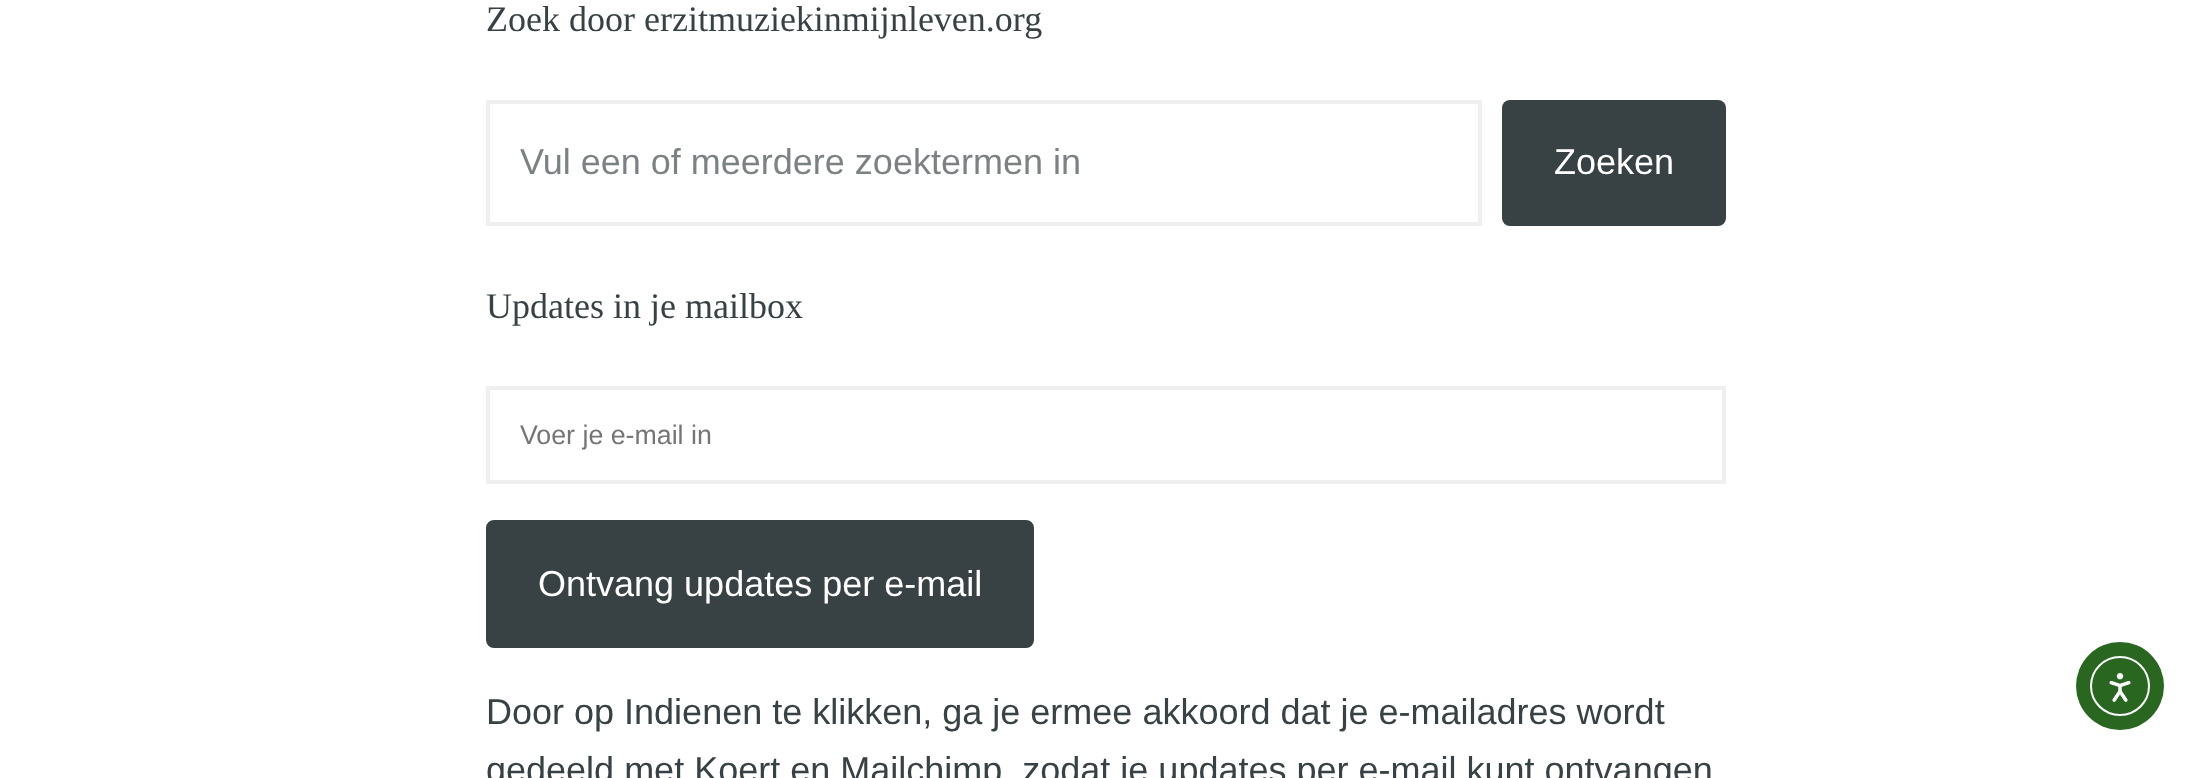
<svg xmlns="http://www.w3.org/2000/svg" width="2212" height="778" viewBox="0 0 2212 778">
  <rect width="100%" height="100%" fill="#ffffff"/>
  <text x="486" y="31" font-family="Liberation Serif" font-size="36" fill="#384143">Zoek door erzitmuziekinmijnleven.org</text>
  <rect x="488" y="102" width="992" height="122" fill="none" stroke="#efefef" stroke-width="4"/>
  <text x="520" y="174" font-family="Liberation Sans" font-size="36" fill="#7c8283">Vul een of meerdere zoektermen in</text>
  <rect x="1502" y="100" width="224" height="126" rx="8" fill="#384143"/>
  <text x="1554" y="174" font-family="Liberation Sans" font-size="36" fill="#ffffff">Zoeken</text>
  <text x="486" y="318" font-family="Liberation Serif" font-size="36" fill="#384143">Updates in je mailbox</text>
  <rect x="488" y="388" width="1236" height="94" fill="none" stroke="#efefef" stroke-width="4"/>
  <text x="520" y="444" font-family="Liberation Sans" font-size="26.75" fill="#757575">Voer je e-mail in</text>
  <rect x="488" y="522" width="544" height="124" rx="6" fill="#384143" stroke="#384143" stroke-width="4"/>
  <text x="538" y="596" font-family="Liberation Sans" font-size="36" fill="#ffffff">Ontvang updates per e-mail</text>
  <text x="486" y="724" font-family="Liberation Sans" font-size="36" fill="#384143">Door op Indienen te klikken, ga je ermee akkoord dat je e-mailadres wordt</text>
  <text x="486" y="782" font-family="Liberation Sans" font-size="36" fill="#384143">gedeeld met Koert en Mailchimp, zodat je updates per e-mail kunt ontvangen</text>
  <circle cx="2120" cy="686" r="44" fill="#296721"/>
  <circle cx="2120" cy="686" r="29" fill="none" stroke="#ffffff" stroke-width="2"/>
  <image x="2109" y="673" width="22" height="29" href="img1.png"/>
</svg>
